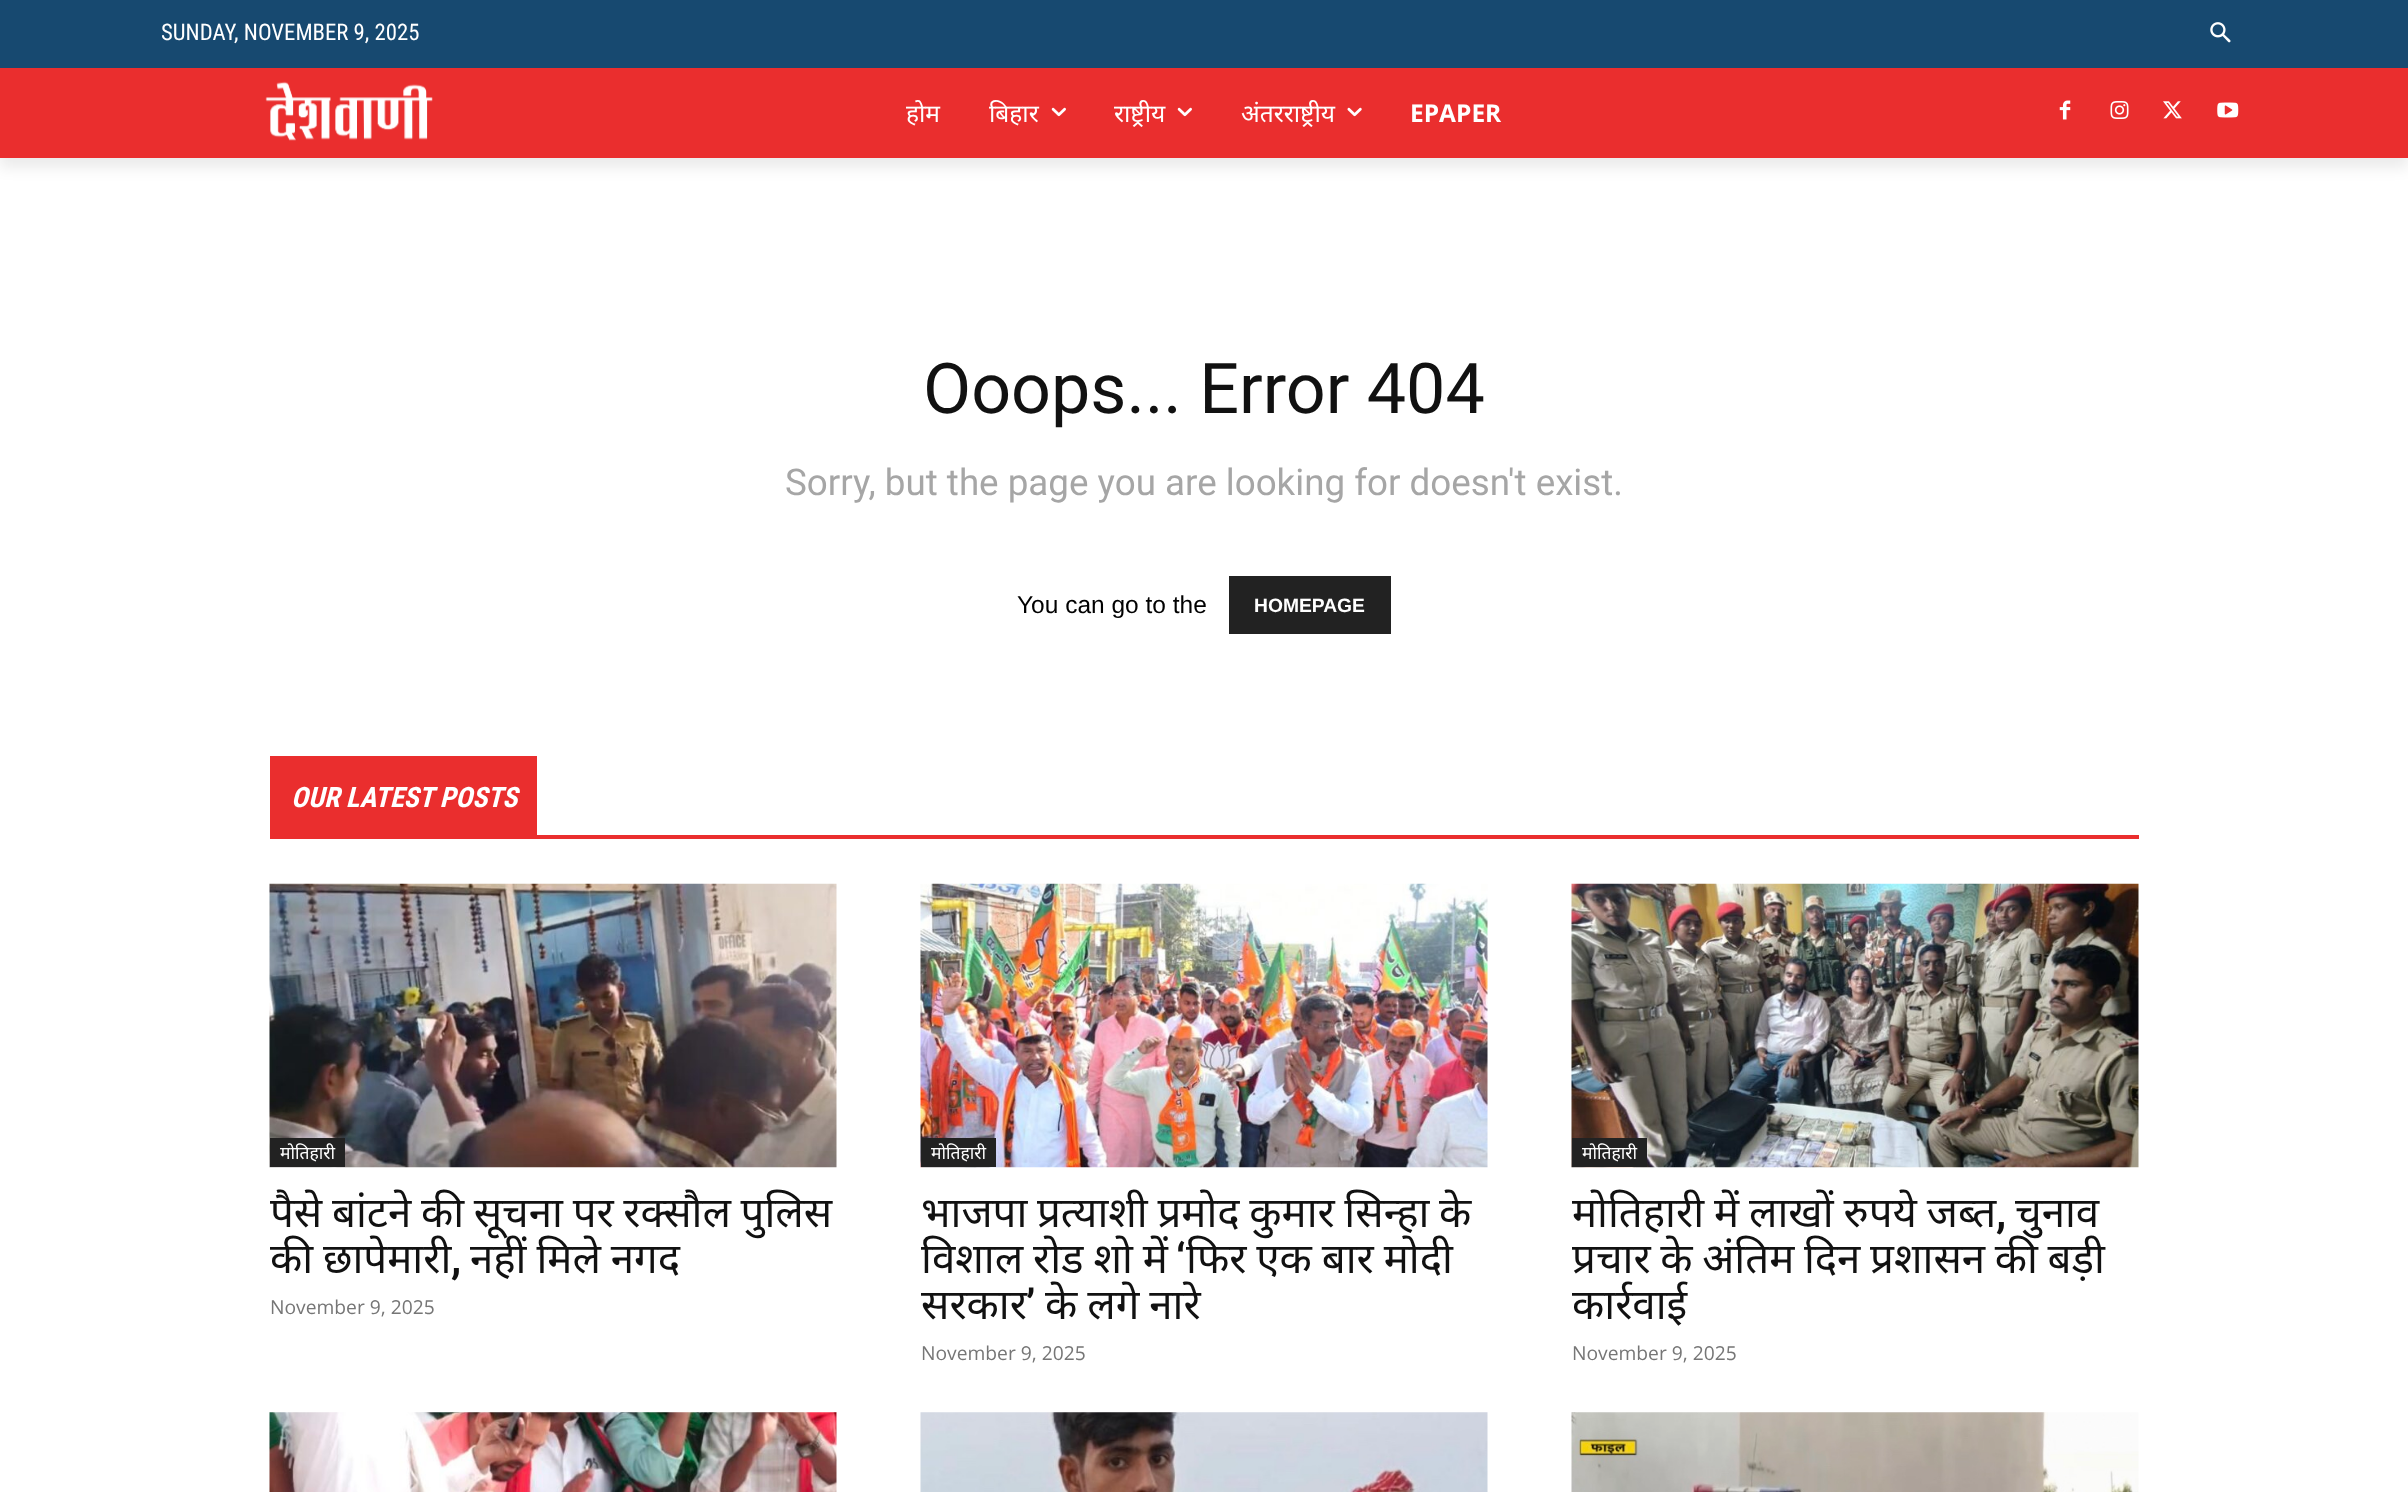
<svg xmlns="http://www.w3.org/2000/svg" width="2408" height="1492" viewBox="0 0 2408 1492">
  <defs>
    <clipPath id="clip1"><path d="M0 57H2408V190H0ZM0 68H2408V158H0Z" clip-rule="evenodd"/></clipPath>
    <filter id="blur1" x="-50%" y="-200%" width="200%" height="500%"><feGaussianBlur stdDeviation="7"/></filter>
  </defs>
  <rect width="100%" height="100%" fill="#ffffff"/>
  <rect x="0" y="0" width="2408" height="68" fill="#174970"/>
  <text x="161" y="40" font-family="Roboto Condensed" font-size="22.75" fill="#ffffff">SUNDAY, NOVEMBER 9, 2025</text>
  <image x="2210" y="22" width="21" height="21" href="img1.png"/>
  <rect x="0" y="68" width="2408" height="90" fill="#ea2e2e"/>
  <image x="265" y="81" width="168" height="60" href="img2.png"/>
  <image x="2059" y="100" width="12" height="20" href="img5.png"/>
  <image x="2110" y="101" width="19" height="18" href="img6.png"/>
  <image x="2163" y="101" width="19" height="18" href="img7.png"/>
  <image x="2217" y="102" width="22" height="16" href="img8.png"/>
  <g clip-path="url(#clip1)">
    <rect x="0" y="79" width="2408" height="89" fill="#000000" fill-opacity="0.08" filter="url(#blur1)"/>
  </g>
  <text x="906" y="122" font-family="Noto Sans" font-size="24.5" fill="#ffffff">होम</text>
  <text x="989" y="122" font-family="Noto Sans" font-size="24.5" fill="#ffffff">बिहार</text>
  <image x="1051" y="107" width="15" height="10" href="img3.png"/>
  <text x="1114" y="122" font-family="Noto Sans" font-size="24.5" fill="#ffffff">राष्ट्रीय</text>
  <image x="1177" y="107" width="15" height="10" href="img3.png"/>
  <text x="1241" y="122" font-family="Noto Sans" font-size="24.5" fill="#ffffff">अंतरराष्ट्रीय</text>
  <image x="1347" y="107" width="15" height="10" href="img4.png"/>
  <text x="1410" y="122" font-family="Open Sans" font-size="24.5" font-weight="bold" fill="#ffffff">EPAPER</text>
  <text x="923" y="413" font-family="Roboto" font-size="70" fill="#111111">Ooops... Error 404</text>
  <text x="785" y="495" font-family="Roboto" font-size="36.75" fill="#a6a6a6">Sorry, but the page you are looking for doesn't exist.</text>
  <text x="1017" y="613" font-family="Liberation Sans" font-size="24.5" fill="#000000">You can go to the</text>
  <rect x="1229" y="576" width="162" height="58" fill="#222222"/>
  <text x="1254" y="612" font-family="Liberation Sans" font-size="19.25" font-weight="bold" fill="#ffffff">HOMEPAGE</text>
  <rect x="270" y="835" width="1869" height="4" fill="#ea2e2e"/>
  <rect x="270" y="756" width="267" height="79" fill="#ea2e2e"/>
  <text x="291" y="807" font-family="Roboto Condensed" font-size="28" font-weight="bold" font-style="italic" fill="#ffffff">OUR LATEST POSTS</text>
  <image x="269" y="883" width="568" height="285" href="img9.png"/>
  <rect x="270" y="1138" width="75" height="29" fill="#222222"/>
  <text x="280" y="1159" font-family="Noto Sans" font-size="17.5" fill="#ffffff">मोतिहारी</text>
  <text x="270" y="1227" word-spacing="-1.25" font-family="Noto Sans" font-size="42" fill="#111111">पैसे बांटने की सूचना पर रक्सौल पुलिस</text>
  <text x="270" y="1273" word-spacing="-1" font-family="Noto Sans" font-size="42" fill="#111111">की छापेमारी</text>
  <text x="451" y="1273" font-family="Roboto Condensed" font-size="42" font-weight="bold" fill="#111111">,</text>
  <text x="470" y="1273" word-spacing="-1" font-family="Noto Sans" font-size="42" fill="#111111">नहीं मिले नगद</text>
  <text x="270" y="1314" font-family="Open Sans" font-size="19.25" fill="#767676">November 9, 2025</text>
  <image x="920" y="883" width="568" height="285" href="img10.png"/>
  <rect x="921" y="1138" width="75" height="29" fill="#222222"/>
  <text x="931" y="1159" font-family="Noto Sans" font-size="17.5" fill="#ffffff">मोतिहारी</text>
  <text x="921" y="1227" word-spacing="-1.25" font-family="Noto Sans" font-size="42" fill="#111111">भाजपा प्रत्याशी प्रमोद कुमार सिन्हा के</text>
  <text x="921" y="1273" word-spacing="-1" font-family="Noto Sans" font-size="42" fill="#111111">विशाल रोड शो में</text>
  <text x="1176" y="1273" font-family="Roboto Condensed" font-size="42" font-weight="bold" fill="#111111">‘</text>
  <text x="1186" y="1273" word-spacing="-1" font-family="Noto Sans" font-size="42" fill="#111111">फिर एक बार मोदी</text>
  <text x="921" y="1319" font-family="Noto Sans" font-size="42" fill="#111111">सरकार</text>
  <text x="1026" y="1319" font-family="Roboto Condensed" font-size="42" font-weight="bold" fill="#111111">’</text>
  <text x="1045" y="1319" word-spacing="-1" font-family="Noto Sans" font-size="42" fill="#111111">के लगे नारे</text>
  <text x="921" y="1360" font-family="Open Sans" font-size="19.25" fill="#767676">November 9, 2025</text>
  <image x="1571" y="883" width="568" height="285" href="img11.png"/>
  <rect x="1572" y="1138" width="75" height="29" fill="#222222"/>
  <text x="1582" y="1159" font-family="Noto Sans" font-size="17.5" fill="#ffffff">मोतिहारी</text>
  <text x="1572" y="1227" word-spacing="-1" font-family="Noto Sans" font-size="42" fill="#111111">मोतिहारी में लाखों रुपये जब्त</text>
  <text x="1996" y="1227" font-family="Roboto Condensed" font-size="42" font-weight="bold" fill="#111111">,</text>
  <text x="2015" y="1227" font-family="Noto Sans" font-size="42" fill="#111111">चुनाव</text>
  <text x="1572" y="1273" word-spacing="-1.25" font-family="Noto Sans" font-size="42" fill="#111111">प्रचार के अंतिम दिन प्रशासन की बड़ी</text>
  <text x="1572" y="1319" font-family="Noto Sans" font-size="42" fill="#111111">कार्रवाई</text>
  <text x="1572" y="1360" font-family="Open Sans" font-size="19.25" fill="#767676">November 9, 2025</text>
  <image x="269" y="1412" width="568" height="80" href="img12.png"/>
  <image x="920" y="1412" width="568" height="80" href="img13.png"/>
  <image x="1571" y="1412" width="568" height="80" href="img14.png"/>
</svg>
